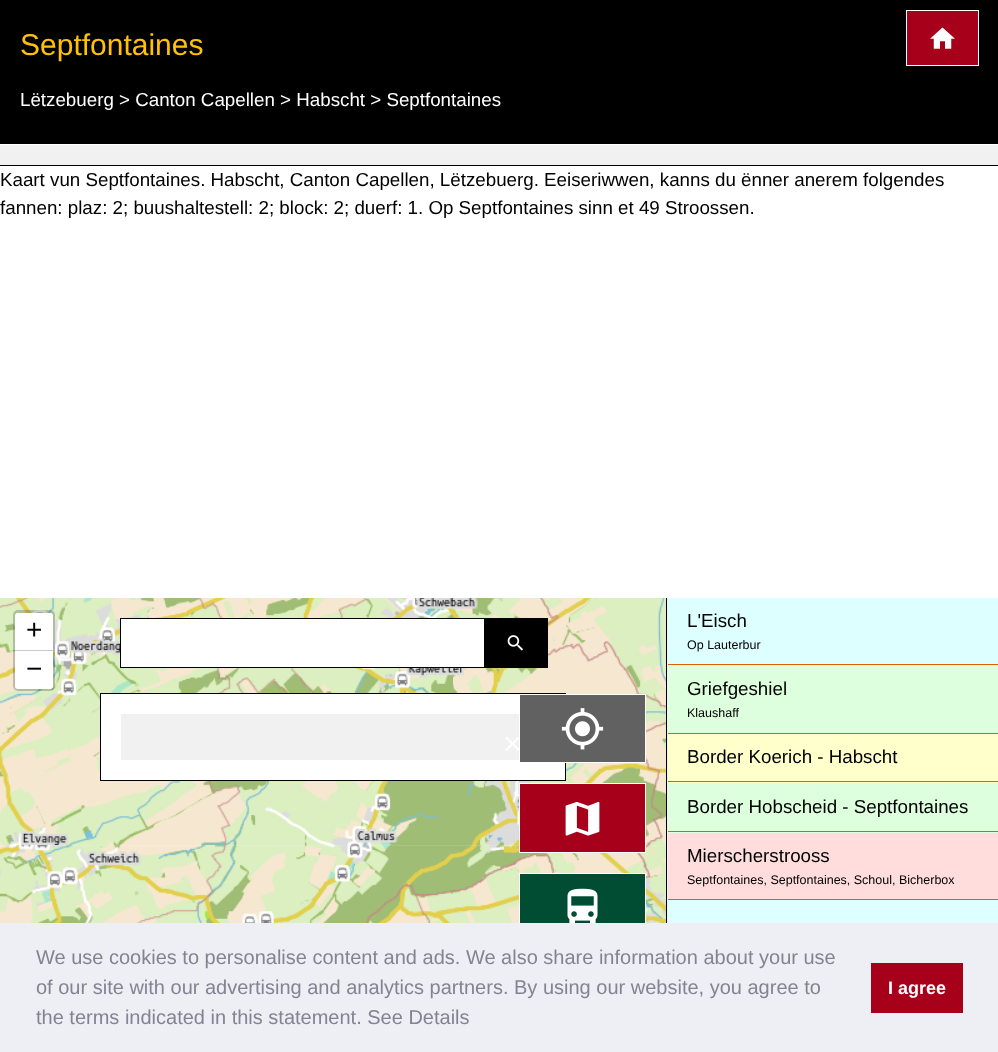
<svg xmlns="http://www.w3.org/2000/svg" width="998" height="1052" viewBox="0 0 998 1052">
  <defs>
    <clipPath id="clip1"><rect x="120" y="618" width="364" height="50"/></clipPath>
  </defs>
  <rect width="100%" height="100%" fill="#ffffff"/>
  <rect x="0" y="0" width="998" height="144" fill="#000000"/>
  <text x="20" y="55" font-family="Liberation Sans" font-size="30" fill="#ffc107">Septfontaines</text>
  <rect x="906.5" y="10.5" width="72" height="55" fill="#a6001a" stroke="#ffffff"/>
  <image x="930" y="27" width="25" height="22" href="img1.png"/>
  <text x="20" y="106" font-family="Liberation Sans" font-size="18.75" fill="#ffffff">Lëtzebuerg &gt; Canton Capellen &gt; Habscht &gt; Septfontaines</text>
  <rect x="0" y="145" width="998" height="20" fill="#f1f1f1"/>
  <rect x="0" y="165" width="998" height="1" fill="#000000"/>
  <text x="0" y="186" font-family="Liberation Sans" font-size="18.75" fill="#000000">Kaart vun Septfontaines. Habscht, Canton Capellen, Lëtzebuerg. Eeiseriwwen, kanns du ënner anerem folgendes</text>
  <text x="0" y="214" font-family="Liberation Sans" font-size="18.75" fill="#000000">fannen: plaz: 2; buushaltestell: 2; block: 2; duerf: 1. Op Septfontaines sinn et 49 Stroossen.</text>
  <image x="0" y="598" width="133" height="247" href="img2.png"/>
  <image x="133" y="598" width="320" height="247" href="img3.png"/>
  <image x="453" y="598" width="213" height="247" href="img4.png"/>
  <image x="0" y="845" width="133" height="78" href="img5.png"/>
  <image x="133" y="845" width="320" height="78" href="img6.png"/>
  <image x="453" y="845" width="213" height="78" href="img7.png"/>
  <rect x="14.5" y="611.5" width="39" height="78" rx="3.5" fill="none" stroke="#000000" stroke-opacity="0.2" stroke-width="3"/>
  <path d="M17.5 613H50.5C52 613 53 614 53 615.5V651H15V615.5C15 614 16 613 17.5 613Z" fill="#ffffff"/>
  <rect x="15" y="650" width="38" height="1" fill="#cccccc"/>
  <text x="26" y="639" font-family="Liberation Sans" font-size="28" fill="#000000">+</text>
  <path d="M15 651H53V686.5C53 688 52 689 50.5 689H17.5C16 689 15 688 15 686.5Z" fill="#ffffff"/>
  <text x="26" y="678" font-family="Liberation Sans" font-size="28" fill="#000000">−</text>
  <rect x="121" y="619" width="363" height="48" fill="#ffffff"/>
  <rect x="484" y="618" width="64" height="50" fill="#000000"/>
  <g clip-path="url(#clip1)">
    <rect x="120.5" y="618.5" width="385" height="49" fill="none" stroke="#000000"/>
  </g>
  <image x="507" y="635" width="16" height="16" href="img8.png"/>
  <rect x="100.5" y="693.5" width="465" height="87" fill="#ffffff" stroke="#000000"/>
  <rect x="121" y="714" width="398" height="46" fill="#f1f1f1"/>
  <image x="505" y="737" width="14" height="14" href="img9.png"/>
  <rect x="519.5" y="694.5" width="126" height="68" fill="#616161" stroke="#ffffff"/>
  <image x="561" y="708" width="43" height="42" href="img10.png"/>
  <rect x="519.5" y="783.5" width="126" height="69" fill="#a6001a" stroke="#ffffff"/>
  <image x="565" y="801" width="35" height="35" href="img11.png"/>
  <rect x="520" y="874" width="125" height="49" fill="#004d33"/>
  <rect x="519.5" y="873.5" width="126" height="67" fill="none" stroke="#ffffff"/>
  <image x="567" y="888" width="31" height="35" href="img12.png"/>
  <rect x="667" y="598" width="1" height="325" fill="#f1f1f1"/>
  <rect x="666" y="598" width="1" height="325" fill="#000000"/>
  <rect x="668" y="598" width="330" height="66" fill="#ddffff"/>
  <rect x="668" y="664" width="330" height="1" fill="#e06000"/>
  <text x="687" y="627" font-family="Liberation Sans" font-size="18.75" fill="#000000">L'Eisch</text>
  <text x="687" y="649" font-family="Liberation Sans" font-size="12.5" fill="#000000">Op Lauterbur</text>
  <rect x="668" y="665" width="330" height="68" fill="#ddffdd"/>
  <rect x="668" y="733" width="330" height="1" fill="#e06000"/>
  <text x="687" y="695" font-family="Liberation Sans" font-size="18.75" fill="#000000">Griefgeshiel</text>
  <text x="687" y="717" font-family="Liberation Sans" font-size="12.5" fill="#000000">Klaushaff</text>
  <rect x="668" y="734" width="330" height="49" fill="#ffffcc"/>
  <rect x="668" y="781" width="330" height="1" fill="#e06000"/>
  <text x="687" y="763" font-family="Liberation Sans" font-size="18.75" fill="#000000">Border Koerich - Habscht</text>
  <rect x="668" y="783" width="330" height="50" fill="#ddffdd"/>
  <rect x="668" y="831" width="330" height="1" fill="#e06000"/>
  <text x="687" y="813" font-family="Liberation Sans" font-size="18.75" fill="#000000">Border Hobscheid - Septfontaines</text>
  <rect x="668" y="833" width="330" height="66" fill="#ffdddd"/>
  <rect x="668" y="899" width="330" height="1" fill="#e06000"/>
  <text x="687" y="862" font-family="Liberation Sans" font-size="18.75" fill="#000000">Mierscherstrooss</text>
  <text x="687" y="884" font-family="Liberation Sans" font-size="12.5" fill="#000000">Septfontaines, Septfontaines, Schoul, Bicherbox</text>
  <rect x="668" y="900" width="330" height="23" fill="#ddffff"/>
  <rect x="0" y="923" width="998" height="129" fill="#edeff5"/>
  <text x="36" y="964" font-family="Liberation Sans" font-size="20" fill="#838391">We use cookies to personalise content and ads. We also share information about your use</text>
  <text x="36" y="994" font-family="Liberation Sans" font-size="20" fill="#838391">of our site with our advertising and analytics partners. By using our website, you agree to</text>
  <text x="36" y="1024" font-family="Liberation Sans" font-size="20" fill="#838391">the terms indicated in this statement. See Details</text>
  <rect x="871" y="963" width="92" height="50" fill="#a6001a"/>
  <text x="888" y="994" font-family="Liberation Sans" font-size="18" font-weight="bold" fill="#ffffff">I agree</text>
</svg>
